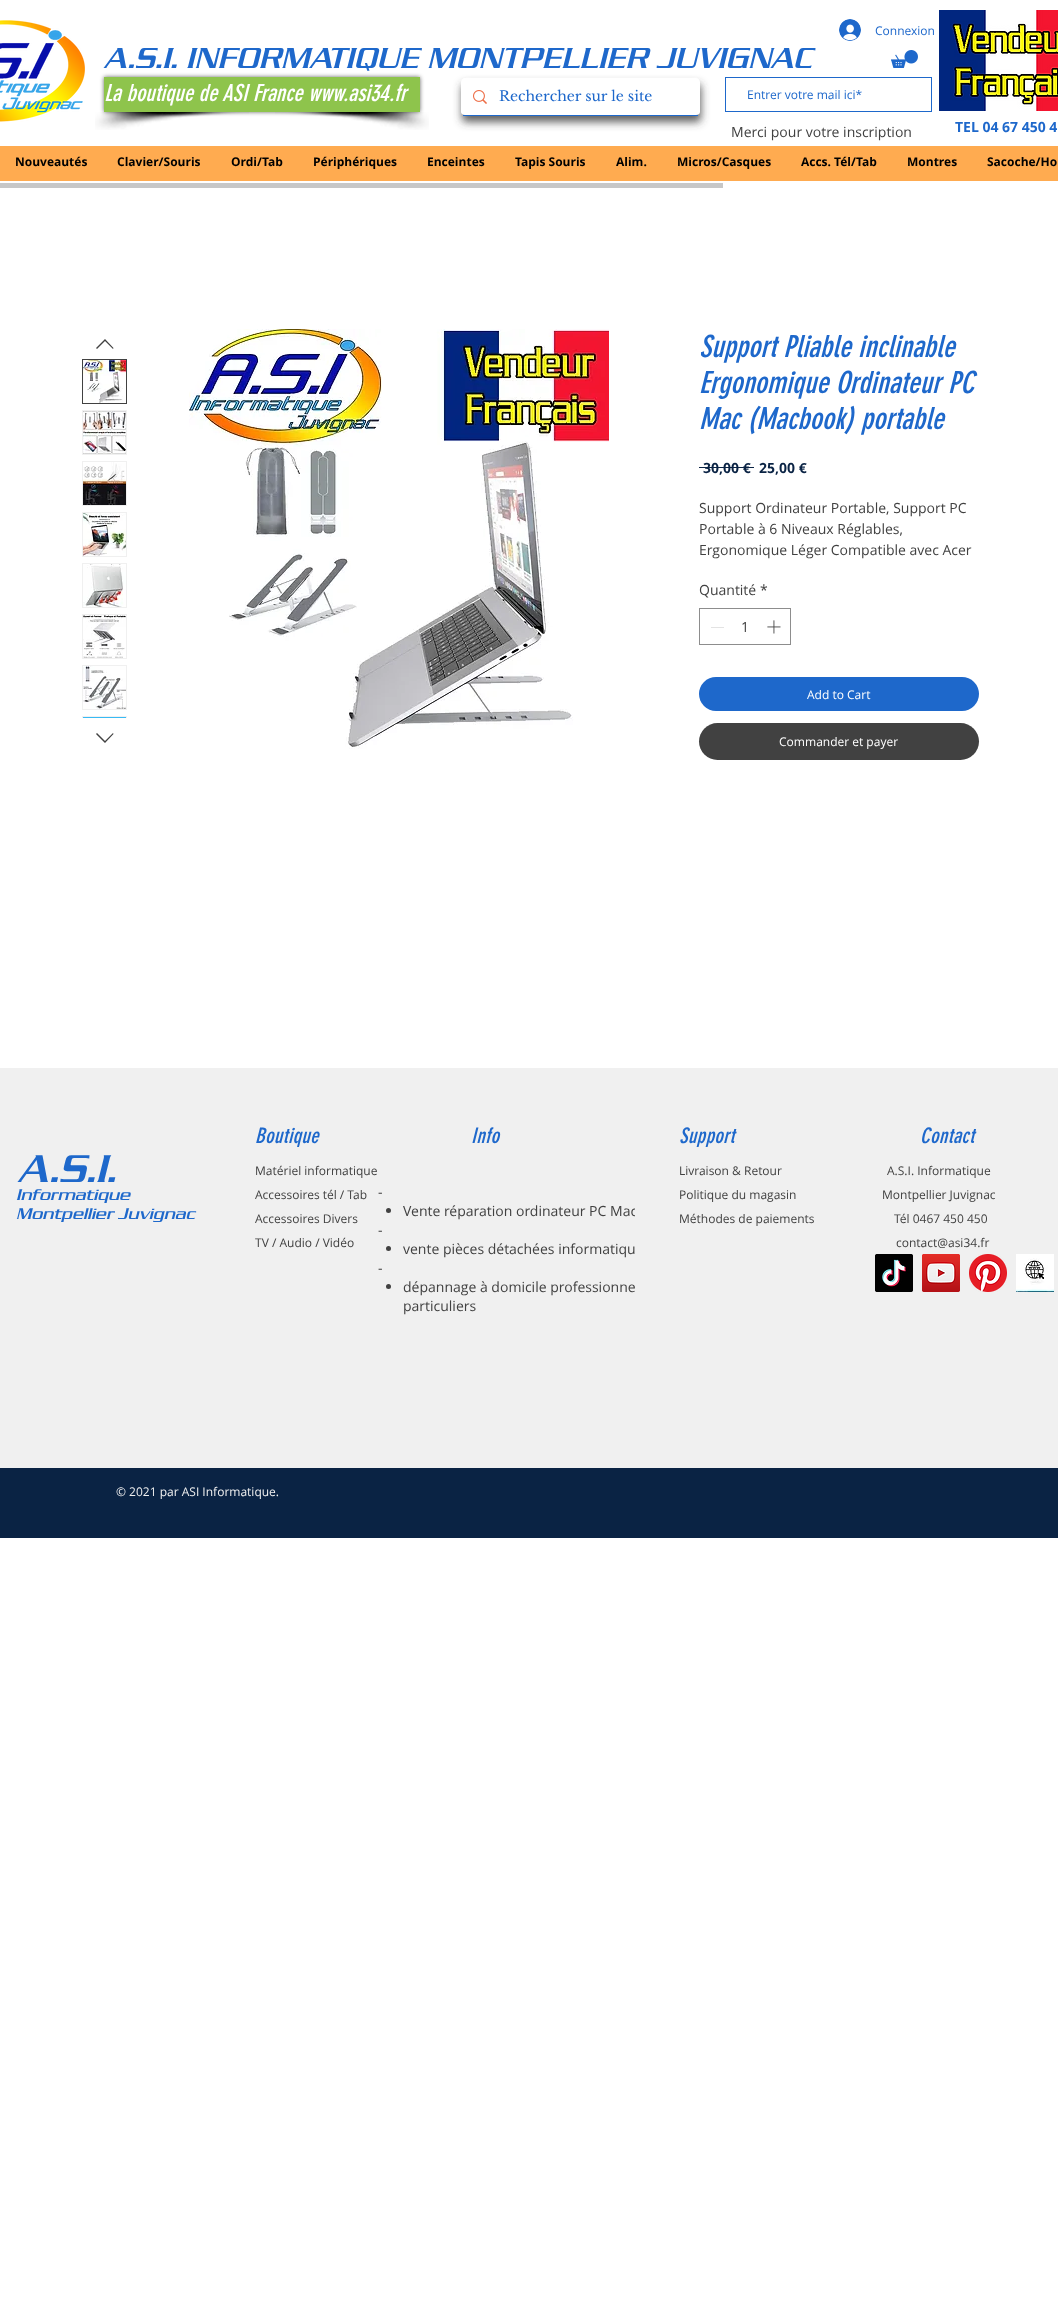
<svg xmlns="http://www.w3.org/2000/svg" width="1058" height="2300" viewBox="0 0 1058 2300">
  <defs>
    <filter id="blur1" x="-50%" y="-200%" width="200%" height="500%"><feGaussianBlur stdDeviation="2"/></filter>
    <filter id="blur2" x="-50%" y="-200%" width="200%" height="500%"><feGaussianBlur stdDeviation="4.5"/></filter>
    <radialGradient id="g1" gradientUnits="userSpaceOnUse" cx="0" cy="146" r="1059"><stop offset="0" stop-color="#ff8b04"/><stop offset="0" stop-color="#ffab50"/></radialGradient>
  </defs>
  <rect width="100%" height="100%" fill="#ffffff"/>
  <image x="0" y="20" width="85" height="102" href="img1.png"/>
  <image x="839" y="19" width="22" height="22" href="img2.png"/>
  <text x="875" y="35" font-family="Open Sans" font-size="12" fill="#1e68cb">Connexion</text>
  <image x="939" y="10" width="119" height="101" href="img3.png"/>
  <text x="104" y="68" font-family="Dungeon" font-size="30" font-style="italic" fill="#1e68cb">A.S.I. INFORMATIQUE MONTPELLIER JUVIGNAC</text>
  <image x="891" y="50" width="27" height="18" href="img4.png"/>
  <image x="95" y="112" width="154" height="18" href="img5.png"/>
  <image x="275" y="112" width="154" height="18" href="img6.png"/>
  <rect x="104" y="77" width="316" height="35" fill="#000000" fill-opacity="0.6" filter="url(#blur1)"/>
  <rect x="104" y="77" width="316" height="35" fill="#8ec44c"/>
  <text x="104" y="101" font-family="'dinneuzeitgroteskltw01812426'" font-size="23" font-style="italic" fill="#ffffff">La boutique de ASI France www.asi34.fr</text>
  <rect x="462" y="84" width="239" height="38" rx="4" fill="#414141" fill-opacity="0.83" filter="url(#blur2)"/>
  <rect x="463" y="115" width="235" height="1" fill="#1e68cb"/>
  <path d="M465 78C463 78 461 80 461 82V112C461 114 463 115 465 115H696C698 115 700 114 700 112V82C700 80 698 78 696 78Z" fill="#ffffff"/>
  <image x="473" y="90" width="14" height="14" href="img7.png"/>
  <text x="499" y="101" font-family="Libre Baskerville" font-size="14" fill="#1e68cb">Rechercher sur le site</text>
  <rect x="725.5" y="77.5" width="206" height="34" fill="none" stroke="#1e68cb"/>
  <text x="747" y="99" font-family="Open Sans" font-size="12" fill="#1e68cb">Entrer votre mail ici*</text>
  <text x="731" y="137" font-family="Open Sans" font-size="14" fill="#414141">Merci pour votre inscription</text>
  <text x="955" y="132" font-family="Open Sans" font-size="14" font-weight="bold" fill="#1e68cb">TEL 04 67 450 4</text>
  <rect x="0" y="146" width="1058" height="35" fill="url(#g1)"/>
  <rect x="0" y="183" width="723" height="5" fill="#c7c7c7"/>
  <text x="15" y="166" font-family="Open Sans" font-size="12" font-weight="bold" fill="#000000">Nouveautés</text>
  <text x="117" y="166" font-family="Open Sans" font-size="12" font-weight="bold" fill="#000000">Clavier/Souris</text>
  <text x="231" y="166" font-family="Open Sans" font-size="12" font-weight="bold" fill="#000000">Ordi/Tab</text>
  <text x="313" y="166" font-family="Open Sans" font-size="12" font-weight="bold" fill="#000000">Périphériques</text>
  <text x="427" y="166" font-family="Open Sans" font-size="12" font-weight="bold" fill="#000000">Enceintes</text>
  <text x="515" y="166" font-family="Open Sans" font-size="12" font-weight="bold" fill="#000000">Tapis Souris</text>
  <text x="616" y="166" font-family="Open Sans" font-size="12" font-weight="bold" fill="#000000">Alim.</text>
  <text x="677" y="166" font-family="Open Sans" font-size="12" font-weight="bold" fill="#000000">Micros/Casques</text>
  <text x="801" y="166" font-family="Open Sans" font-size="12" font-weight="bold" fill="#000000">Accs. Tél/Tab</text>
  <text x="907" y="166" font-family="Open Sans" font-size="12" font-weight="bold" fill="#000000">Montres</text>
  <text x="987" y="166" font-family="Open Sans" font-size="12" font-weight="bold" fill="#000000">Sacoche/Ho</text>
  <path d="M105 339L113.5 348L113 349L105 341L97 349L96 348Z" fill="#414141" fill-rule="evenodd"/>
  <rect x="82.5" y="359.5" width="44" height="44" fill="none" stroke="#414141"/>
  <image x="83" y="360" width="43" height="43" href="img8.png"/>
  <rect x="82" y="410" width="45" height="45" fill="#f0f0f0"/>
  <image x="83" y="411" width="43" height="43" href="img9.png"/>
  <rect x="82" y="461" width="45" height="45" fill="#f0f0f0"/>
  <image x="83" y="462" width="43" height="43" href="img10.png"/>
  <rect x="82" y="512" width="45" height="45" fill="#f0f0f0"/>
  <image x="83" y="513" width="43" height="43" href="img11.png"/>
  <rect x="82" y="563" width="45" height="45" fill="#f0f0f0"/>
  <image x="83" y="564" width="43" height="43" href="img12.png"/>
  <rect x="82" y="614" width="45" height="45" fill="#f0f0f0"/>
  <image x="83" y="615" width="43" height="43" href="img13.png"/>
  <rect x="82" y="665" width="45" height="45" fill="#f0f0f0"/>
  <image x="83" y="666" width="43" height="43" href="img14.png"/>
  <rect x="82" y="716" width="45" height="2" fill="#f0f0f0"/>
  <rect x="83" y="717" width="43" height="1" fill="#38baf4"/>
  <path d="M113 733L113.5 734L105 743L96 734L97 733L105 741Z" fill="#414141" fill-rule="evenodd"/>
  <image x="189" y="329" width="420" height="420" href="img15.png"/>
  <text x="699" y="357" font-family="'dinneuzeitgroteskltw01812426'" font-size="30" font-style="italic" fill="#1e68cb">Support Pliable inclinable</text>
  <text x="699" y="393" font-family="'dinneuzeitgroteskltw01812426'" font-size="30" font-style="italic" fill="#1e68cb">Ergonomique Ordinateur PC</text>
  <text x="699" y="429" font-family="'dinneuzeitgroteskltw01812426'" font-size="30" font-style="italic" fill="#1e68cb">Mac (Macbook) portable</text>
  <text x="703" y="473" font-family="Open Sans" font-size="14" font-weight="bold" fill="#0a2344">30,00 €</text>
  <rect x="699" y="467" width="55" height="1" fill="#0a2344"/>
  <text x="759" y="473" font-family="Open Sans" font-size="14" font-weight="bold" fill="#0a2344">25,00 €</text>
  <text x="699" y="513" font-family="Open Sans" font-size="14" fill="#414141">Support Ordinateur Portable, Support PC</text>
  <text x="699" y="534" font-family="Open Sans" font-size="14" fill="#414141">Portable à 6 Niveaux Réglables,</text>
  <text x="699" y="555" font-family="Open Sans" font-size="14" fill="#414141">Ergonomique Léger Compatible avec Acer</text>
  <text x="699" y="595" font-family="Open Sans" font-size="14" fill="#414141">Quantité</text>
  <text x="760" y="595" font-family="Open Sans" font-size="14" fill="#414141">*</text>
  <rect x="699.5" y="608.5" width="91" height="36" fill="none" stroke="#8d8d8d"/>
  <rect x="711" y="627" width="13" height="1" fill="#e3e3e3"/>
  <text x="741" y="632" font-family="Open Sans" font-size="14" fill="#414141">1</text>
  <image x="767" y="620" width="14" height="14" href="img16.png"/>
  <rect x="699" y="677" width="280" height="34" rx="17" fill="#1e68cb"/>
  <text x="807" y="699" font-family="Open Sans" font-size="12" fill="#ffffff">Add to Cart</text>
  <rect x="699" y="723" width="280" height="37" rx="18.5" fill="#414141"/>
  <text x="779" y="746" font-family="Open Sans" font-size="12" fill="#ffffff">Commander et payer</text>
  <rect x="0" y="1068" width="635" height="400" fill="#f0f0f0"/>
  <text x="18" y="1182" font-family="Dungeon" font-size="40" font-style="italic" fill="#1e68cb">A.S.I.</text>
  <text x="16" y="1200" font-family="Dungeon" font-size="16" font-style="italic" fill="#1e68cb">Informatique</text>
  <text x="16" y="1219" font-family="Dungeon" font-size="16" font-style="italic" fill="#1e68cb">Montpellier Juvignac</text>
  <text x="255" y="1143" font-family="'dinneuzeitgroteskltw01812426'" font-size="21" font-style="italic" letter-spacing="0.25" fill="#1e68cb">Boutique</text>
  <text x="255" y="1175" font-family="Open Sans" font-size="12" fill="#414141">Matériel informatique</text>
  <text x="255" y="1199" font-family="Open Sans" font-size="12" fill="#414141">Accessoires tél / Tab</text>
  <text x="255" y="1223" font-family="Open Sans" font-size="12" fill="#414141">Accessoires Divers</text>
  <text x="255" y="1247" font-family="Open Sans" font-size="12" fill="#414141">TV / Audio / Vidéo</text>
  <text x="471" y="1143" font-family="'dinneuzeitgroteskltw01812426'" font-size="21" font-style="italic" letter-spacing="0.25" fill="#1e68cb">Info</text>
  <text x="378" y="1197" font-family="Open Sans" font-size="14" fill="#414141">-</text>
  <circle cx="388.5" cy="1210.5" r="2.5" fill="#414141"/>
  <text x="403" y="1216" font-family="Open Sans" font-size="14" fill="#414141">Vente réparation ordinateur PC Mac</text>
  <text x="378" y="1235" font-family="Open Sans" font-size="14" fill="#414141">-</text>
  <circle cx="388.5" cy="1248.5" r="2.5" fill="#414141"/>
  <text x="403" y="1254" font-family="Open Sans" font-size="14" fill="#414141">vente pièces détachées informatiqu</text>
  <text x="378" y="1273" font-family="Open Sans" font-size="14" fill="#414141">-</text>
  <circle cx="388.5" cy="1286.5" r="2.5" fill="#414141"/>
  <text x="403" y="1292" font-family="Open Sans" font-size="14" fill="#414141">dépannage à domicile professionne</text>
  <text x="403" y="1311" font-family="Open Sans" font-size="14" fill="#414141">particuliers</text>
  <rect x="635" y="1068" width="423" height="400" fill="#f0f0f0"/>
  <text x="679" y="1143" font-family="'dinneuzeitgroteskltw01812426'" font-size="21" font-style="italic" letter-spacing="0.25" fill="#1e68cb">Support</text>
  <text x="679" y="1175" font-family="Open Sans" font-size="12" fill="#414141">Livraison &amp; Retour</text>
  <text x="679" y="1199" font-family="Open Sans" font-size="12" fill="#414141">Politique du magasin</text>
  <text x="679" y="1223" font-family="Open Sans" font-size="12" fill="#414141">Méthodes de paiements</text>
  <text x="920" y="1143" font-family="'dinneuzeitgroteskltw01812426'" font-size="21" font-style="italic" letter-spacing="0.25" fill="#1e68cb">Contact</text>
  <text x="887" y="1175" font-family="Open Sans" font-size="12" fill="#414141">A.S.I. Informatique</text>
  <text x="882" y="1199" font-family="Open Sans" font-size="12" fill="#414141">Montpellier Juvignac</text>
  <text x="894" y="1223" font-family="Open Sans" font-size="12" fill="#414141">Tél 0467 450 450</text>
  <text x="896" y="1247" font-family="Open Sans" font-size="12" fill="#414141">contact@asi34.fr</text>
  <image x="875" y="1254" width="38" height="38" href="img17.png"/>
  <image x="922" y="1254" width="38" height="38" href="img18.png"/>
  <image x="969" y="1254" width="38" height="38" href="img19.png"/>
  <image x="1016" y="1254" width="38" height="38" href="img20.png"/>
  <rect x="0" y="1468" width="1058" height="70" fill="#0a2344"/>
  <text x="116" y="1496" font-family="Open Sans" font-size="12" fill="#f0f0f0">© 2021 par ASI Informatique.</text>
</svg>
